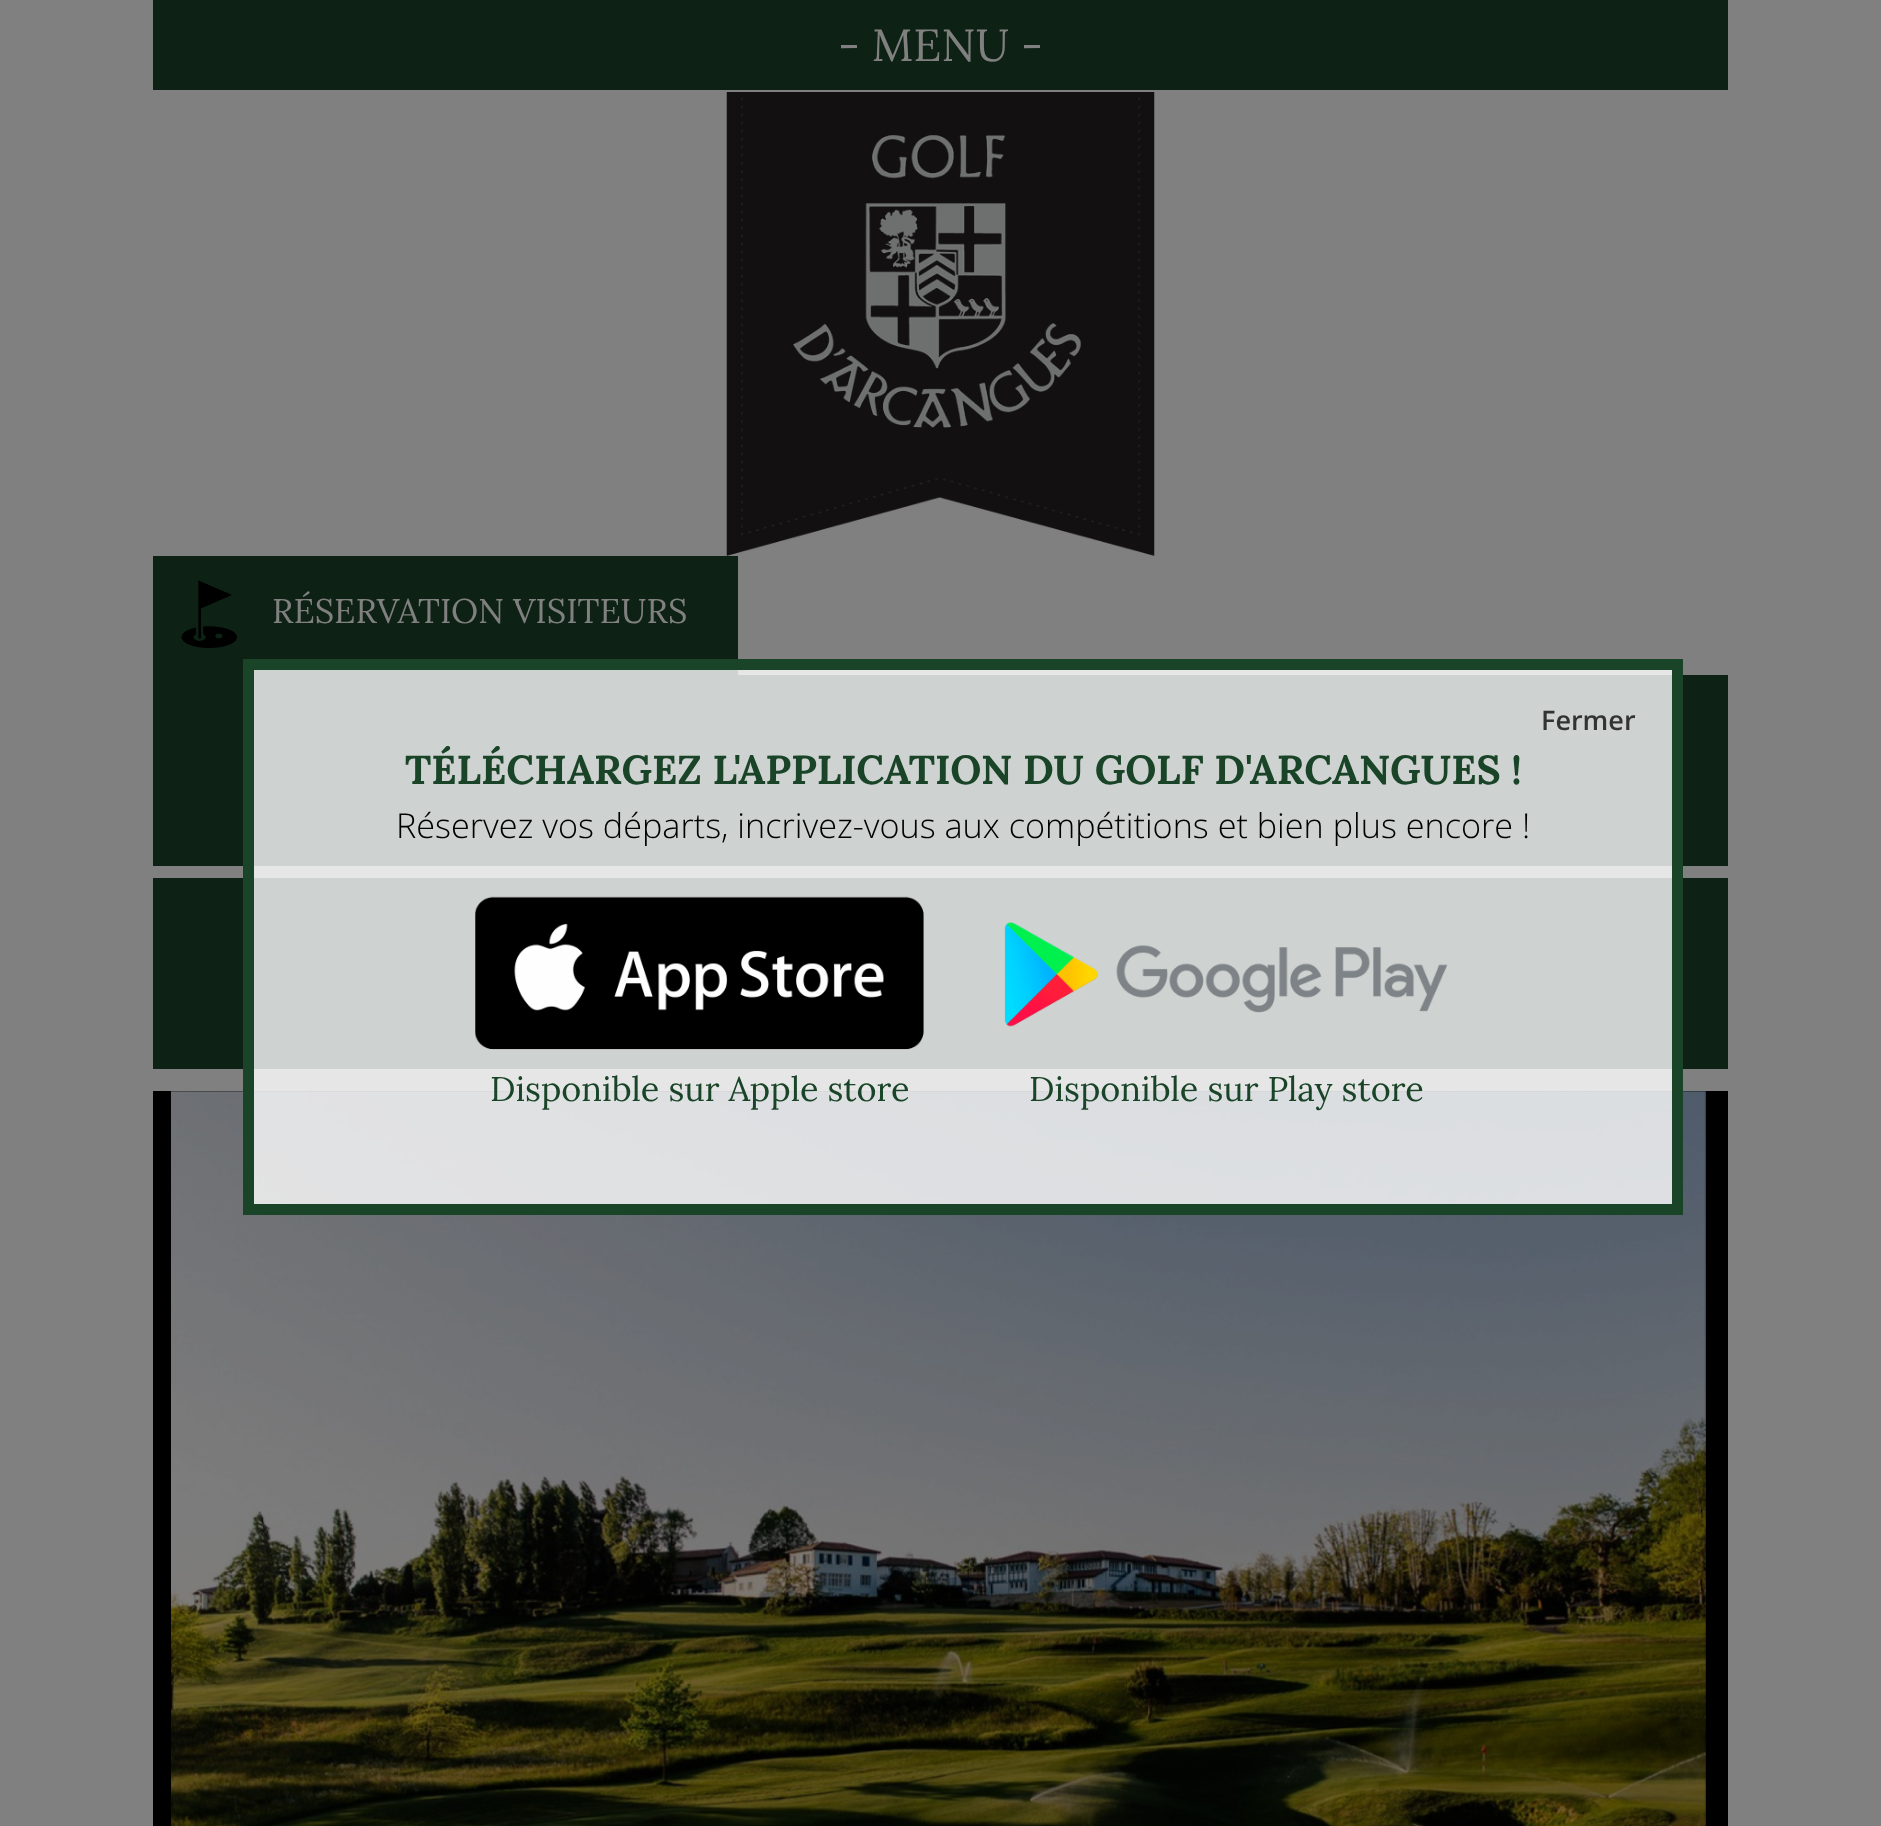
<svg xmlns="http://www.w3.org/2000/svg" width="1881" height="1826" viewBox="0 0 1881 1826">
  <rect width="100%" height="100%" fill="#808080"/>
  <rect x="153" y="0" width="1575" height="90" fill="#0d2214"/>
  <text x="838" y="61" font-family="Lora" font-size="45" fill="#808080">- MENU -</text>
  <image x="726" y="92" width="429" height="464" href="img1.png"/>
  <rect x="153" y="556" width="585" height="119" fill="#0d2214"/>
  <image x="181" y="580" width="56" height="68" href="img2.png"/>
  <text x="272" y="623" font-family="Lora" font-size="34.2" fill="#808080">RÉSERVATION VISITEURS</text>
  <rect x="153" y="675" width="1575" height="191" fill="#0d2214"/>
  <rect x="153" y="878" width="1575" height="191" fill="#0d2214"/>
  <rect x="153" y="1091" width="1575" height="735" fill="#000000"/>
  <image x="171" y="1091" width="1535" height="735" href="img5.png"/>
  <rect x="248.5" y="664.5" width="1429" height="545" fill="#ffffff" fill-opacity="0.8" stroke="#194428" stroke-width="11"/>
  <text x="1541" y="730" font-family="Open Sans" font-size="27" font-weight="600" fill="#333333">Fermer</text>
  <text x="405" y="784" font-family="Lora" font-size="40.5" font-weight="bold" fill="#194428">TÉLÉCHARGEZ L'APPLICATION DU GOLF D'ARCANGUES !</text>
  <text x="396" y="838" font-family="Open Sans" font-size="34.2" font-weight="300" fill="#000000">Réservez vos départs, incrivez-vous aux compétitions et bien plus encore !</text>
  <image x="475" y="896" width="449" height="154" href="img3.png"/>
  <text x="490" y="1101" font-family="Lora" font-size="34.2" fill="#194428">Disponible sur Apple store</text>
  <image x="1004" y="922" width="444" height="105" href="img4.png"/>
  <text x="1029" y="1101" font-family="Lora" font-size="34.2" fill="#194428">Disponible sur Play store</text>
</svg>
